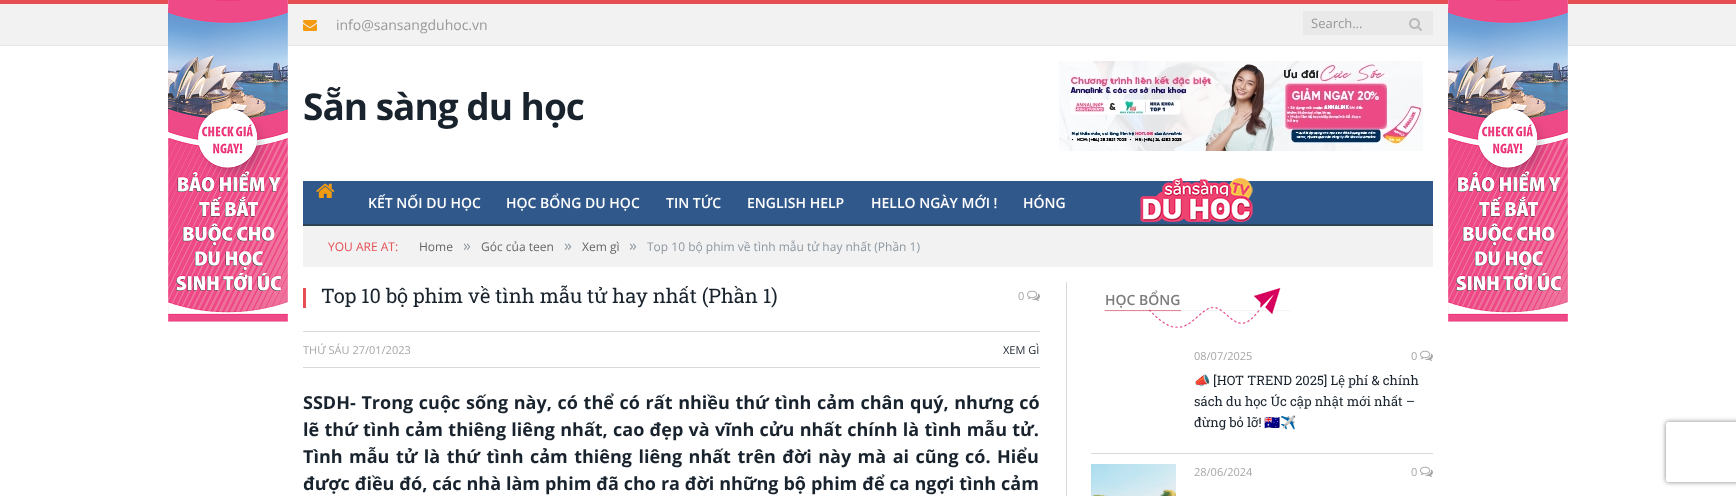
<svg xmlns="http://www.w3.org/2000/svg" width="1736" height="496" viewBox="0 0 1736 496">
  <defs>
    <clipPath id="clip1"><rect x="1194" y="348" width="239" height="95"/></clipPath>
    <clipPath id="clip2"><path d="M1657 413H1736V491H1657ZM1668 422H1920C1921 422 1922 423 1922 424V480C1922 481 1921 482 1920 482H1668C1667 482 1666 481 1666 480V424C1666 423 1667 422 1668 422Z" clip-rule="evenodd"/></clipPath>
    <filter id="blur1" x="-50%" y="-200%" width="200%" height="500%"><feGaussianBlur stdDeviation="2.5"/></filter>
  </defs>
  <rect width="100%" height="100%" fill="#ffffff"/>
  <rect x="0" y="4" width="1736" height="41" fill="#f2f2f2"/>
  <rect x="0" y="0" width="1736" height="4" fill="#e54e53"/>
  <rect x="0" y="45" width="1736" height="1" fill="#e7e7e7"/>
  <image x="168" y="0" width="120" height="322" href="img1.png"/>
  <image x="303" y="20" width="14" height="11" href="img2.png"/>
  <text x="336" y="30" font-family="Open Sans" font-size="14" fill="#999999">info@sansangduhoc.vn</text>
  <rect x="1303" y="11" width="130" height="24" fill="#e9e9e9"/>
  <text x="1311" y="28" font-family="Open Sans" font-size="13" fill="#999999">Search...</text>
  <image x="1409" y="18" width="13" height="13" href="img3.png"/>
  <text x="303" y="120" font-family="Open Sans" font-size="37" font-weight="bold" letter-spacing="-1" fill="#19232d">Sẵn sàng du học</text>
  <image x="1059" y="61" width="364" height="90" href="img4.png"/>
  <rect x="303" y="181" width="1130" height="43" fill="#30588b"/>
  <rect x="303" y="224" width="1130" height="2" fill="#2f4154"/>
  <image x="316" y="183" width="19" height="15" href="img5.png"/>
  <image x="1140" y="178" width="113" height="44" href="img6.png"/>
  <text x="368" y="208" font-family="Open Sans" font-size="14" font-weight="600" fill="#ffffff">KẾT NỐI DU HỌC</text>
  <text x="506" y="208" font-family="Open Sans" font-size="14" font-weight="600" fill="#ffffff">HỌC BỔNG DU HỌC</text>
  <text x="666" y="208" font-family="Open Sans" font-size="14" font-weight="600" fill="#ffffff">TIN TỨC</text>
  <text x="747" y="208" font-family="Open Sans" font-size="14" font-weight="600" fill="#ffffff">ENGLISH HELP</text>
  <text x="871" y="208" font-family="Open Sans" font-size="14" font-weight="600" fill="#ffffff">HELLO NGÀY MỚI !</text>
  <text x="1023" y="208" font-family="Open Sans" font-size="14" font-weight="600" fill="#ffffff">HÓNG</text>
  <rect x="303" y="226" width="1130" height="41" fill="#f2f2f2"/>
  <text x="328" y="251" font-family="Open Sans" font-size="12" fill="#e54e53">YOU ARE AT:</text>
  <text x="419" y="251" font-family="Open Sans" font-size="12" fill="#656565">Home</text>
  <text x="463" y="251" font-family="Open Sans" font-size="16" fill="#8d97a1">»</text>
  <text x="481" y="251" font-family="Open Sans" font-size="12" fill="#656565">Góc của teen</text>
  <text x="564" y="251" font-family="Open Sans" font-size="16" fill="#8d97a1">»</text>
  <text x="582" y="251" font-family="Open Sans" font-size="12" fill="#656565">Xem gì</text>
  <text x="629" y="251" font-family="Open Sans" font-size="16" fill="#8d97a1">»</text>
  <text x="647" y="251" font-family="Open Sans" font-size="12" fill="#8d97a1">Top 10 bộ phim về tình mẫu tử hay nhất (Phần 1)</text>
  <rect x="303" y="288" width="3" height="20" fill="#e54e53"/>
  <text x="321" y="303" font-family="Roboto Slab" font-size="20" fill="#19232d">Top 10 bộ phim về tình mẫu tử hay nhất (Phần 1)</text>
  <text x="1018" y="300" font-family="Open Sans" font-size="11" fill="#a6a6a6">0</text>
  <image x="1027" y="290" width="13" height="11" href="img7.png"/>
  <rect x="303" y="331" width="737" height="1" fill="#d9d9d9"/>
  <rect x="303" y="367" width="737" height="1" fill="#d9d9d9"/>
  <text x="303" y="354" font-family="Open Sans" font-size="11" fill="#a6a6a6">THỨ SÁU 27/01/2023</text>
  <text x="1003" y="354" font-family="Open Sans" font-size="11" fill="#19232d">XEM GÌ</text>
  <text x="303" y="409" word-spacing="1" font-family="Open Sans" font-size="18" font-weight="bold" fill="#19232d">SSDH- Trong cuộc sống này, có thể có rất nhiều thứ tình cảm chân quý, nhưng có</text>
  <text x="303" y="436" word-spacing="0.6" font-family="Open Sans" font-size="18" font-weight="bold" fill="#19232d">lẽ thứ tình cảm thiêng liêng nhất, cao đẹp và vĩnh cửu nhất chính là tình mẫu tử.</text>
  <text x="303" y="463" word-spacing="1.8" font-family="Open Sans" font-size="18" font-weight="bold" fill="#19232d">Tình mẫu tử là thứ tình cảm thiêng liêng nhất trên đời này mà ai cũng có. Hiểu</text>
  <text x="303" y="490" word-spacing="0.25" font-family="Open Sans" font-size="18" font-weight="bold" fill="#19232d">được điều đó, các nhà làm phim đã cho ra đời những bộ phim để ca ngợi tình cảm</text>
  <rect x="1066" y="282" width="1" height="214" fill="#d9d9d9"/>
  <image x="1104" y="288" width="187" height="40" href="img8.png"/>
  <text x="1105" y="305" font-family="Open Sans" font-size="14" font-weight="600" fill="#7d7b7c">HỌC BỔNG</text>
  <rect x="1091" y="453" width="342" height="1" fill="#d9d9d9"/>
  <text x="1194" y="360" font-family="Open Sans" font-size="11" fill="#a6a6a6">08/07/2025</text>
  <text x="1411" y="360" font-family="Open Sans" font-size="11" fill="#a6a6a6">0</text>
  <image x="1420" y="350" width="13" height="11" href="img7.png"/>
  <g clip-path="url(#clip1)">
    <text x="1194" y="385" font-family="Noto Color Emoji" font-size="13" fill="#19232d">📣</text>
  </g>
  <text x="1213" y="385" font-family="Roboto Slab" font-size="13" fill="#19232d">[HOT TREND 2025] Lệ phí &amp; chính</text>
  <text x="1194" y="406" font-family="Roboto Slab" font-size="13" fill="#19232d">sách du học Úc cập nhật mới nhất –</text>
  <text x="1194" y="427" font-family="Roboto Slab" font-size="13" fill="#19232d">đừng bỏ lỡ!</text>
  <text x="1264" y="427" font-family="Noto Color Emoji" font-size="13" fill="#19232d">🇦🇺✈️</text>
  <image x="1091" y="464" width="85" height="32" href="img9.png"/>
  <text x="1194" y="476" font-family="Open Sans" font-size="11" fill="#a6a6a6">28/06/2024</text>
  <text x="1411" y="476" font-family="Open Sans" font-size="11" fill="#a6a6a6">0</text>
  <image x="1420" y="466" width="13" height="11" href="img7.png"/>
  <image x="1448" y="0" width="120" height="322" href="img1.png"/>
  <g clip-path="url(#clip2)">
    <rect x="1666" y="422" width="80" height="60" rx="2" fill="#808080" filter="url(#blur1)"/>
  </g>
</svg>
